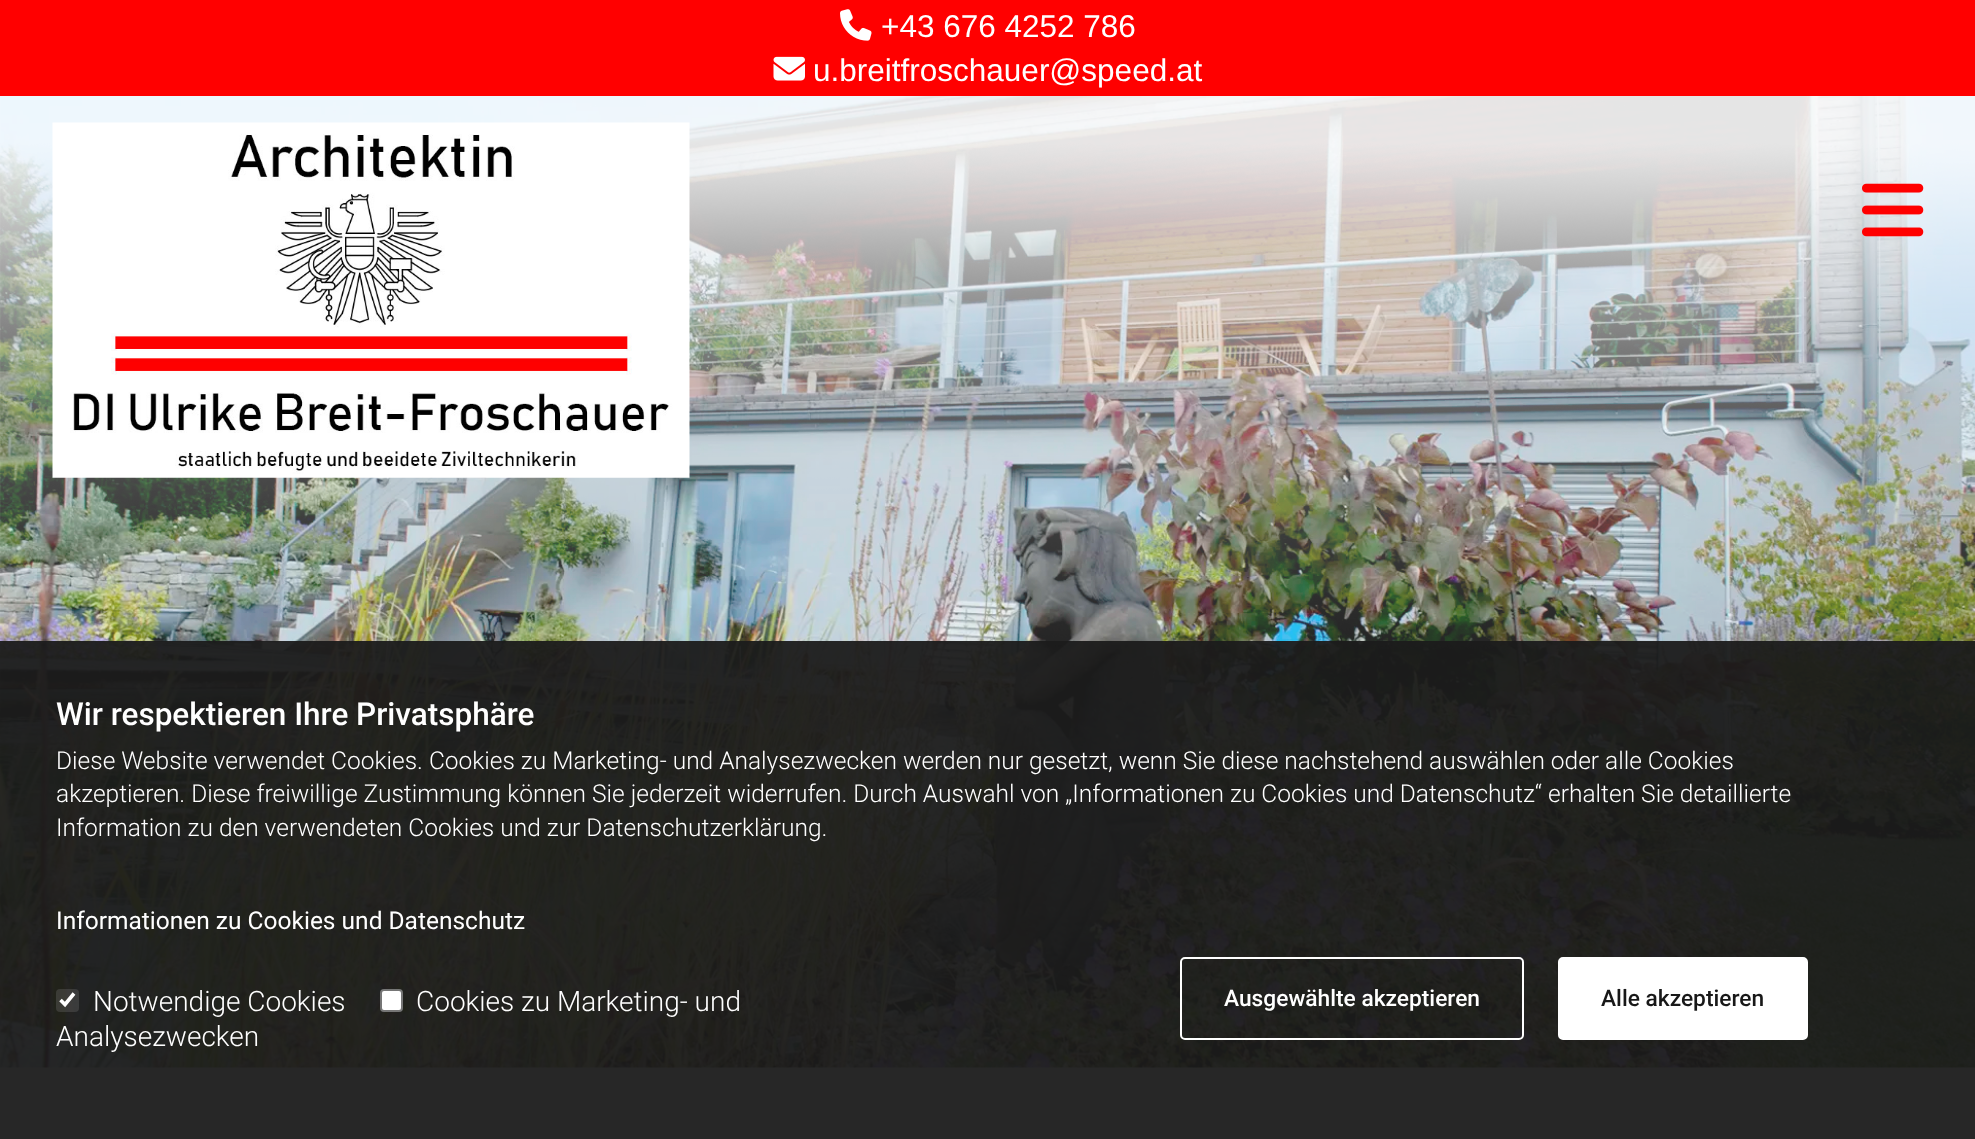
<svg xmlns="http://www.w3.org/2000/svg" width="1975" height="1139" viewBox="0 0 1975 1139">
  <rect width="100%" height="100%" fill="#ffffff"/>
  <rect x="0" y="0" width="1975" height="96" fill="#ff0000"/>
  <image x="840" y="9" width="32" height="32" href="img1.png"/>
  <text x="881" y="37" font-family="Liberation Sans" font-size="31.5" fill="#ffffff">+43 676 4252 786</text>
  <image x="773" y="56" width="32" height="25" href="img2.png"/>
  <text x="813" y="81" font-family="Liberation Sans" font-size="31.5" fill="#ffffff">u.breitfroschauer@speed.at</text>
  <image x="0" y="96" width="1975" height="972" href="img5.png"/>
  <image x="0" y="96" width="1975" height="821" href="img6.png"/>
  <image x="52" y="122" width="638" height="356" href="img3.png"/>
  <image x="1862" y="183" width="62" height="54" href="img4.png"/>
  <rect x="0" y="641" width="1975" height="498" fill="#1b1b1b" fill-opacity="0.95"/>
  <text x="56" y="725" font-family="Roboto" font-size="31.5" font-weight="500" fill="#ffffff">Wir respektieren Ihre Privatsphäre</text>
  <text x="56" y="769" font-family="Roboto" font-size="24.5" font-weight="300" fill="#ffffff">Diese Website verwendet Cookies. Cookies zu Marketing- und Analysezwecken werden nur gesetzt, wenn Sie diese nachstehend auswählen oder alle Cookies</text>
  <text x="56" y="802" font-family="Roboto" font-size="24.5" font-weight="300" fill="#ffffff">akzeptieren. Diese freiwillige Zustimmung können Sie jederzeit widerrufen. Durch Auswahl von „Informationen zu Cookies und Datenschutz“ erhalten Sie detaillierte</text>
  <text x="56" y="836" font-family="Roboto" font-size="24.5" font-weight="300" fill="#ffffff">Information zu den verwendeten Cookies und zur Datenschutzerklärung.</text>
  <text x="56" y="929" font-family="Roboto" font-size="24.5" fill="#ffffff">Informationen zu Cookies und Datenschutz</text>
  <rect x="381" y="990" width="21" height="21" rx="3" fill="#ffffff" stroke="#767676" stroke-width="2"/>
  <text x="416" y="1011" font-family="Roboto" font-size="28" font-weight="300" fill="#ffffff">Cookies zu Marketing- und</text>
  <text x="56" y="1046" font-family="Roboto" font-size="28" font-weight="300" fill="#ffffff">Analysezwecken</text>
  <rect x="56" y="989" width="23" height="23" rx="4" fill="#767676" fill-opacity="0.3"/>
  <path d="M60.5 1000L65 1004.5L74 993.5" fill="none" stroke="#ffffff" stroke-width="3.6"/>
  <text x="93" y="1011" font-family="Roboto" font-size="28" font-weight="300" fill="#ffffff">Notwendige Cookies</text>
  <rect x="1181" y="958" width="342" height="81" rx="4" fill="none" stroke="#ffffff" stroke-width="2"/>
  <text x="1224" y="1006" font-family="Roboto" font-size="22.75" font-weight="500" fill="#ffffff">Ausgewählte akzeptieren</text>
  <rect x="1559" y="958" width="248" height="81" rx="4" fill="#ffffff" stroke="#ffffff" stroke-width="2"/>
  <text x="1601" y="1006" font-family="Roboto" font-size="22.75" font-weight="500" fill="#181818">Alle akzeptieren</text>
</svg>
